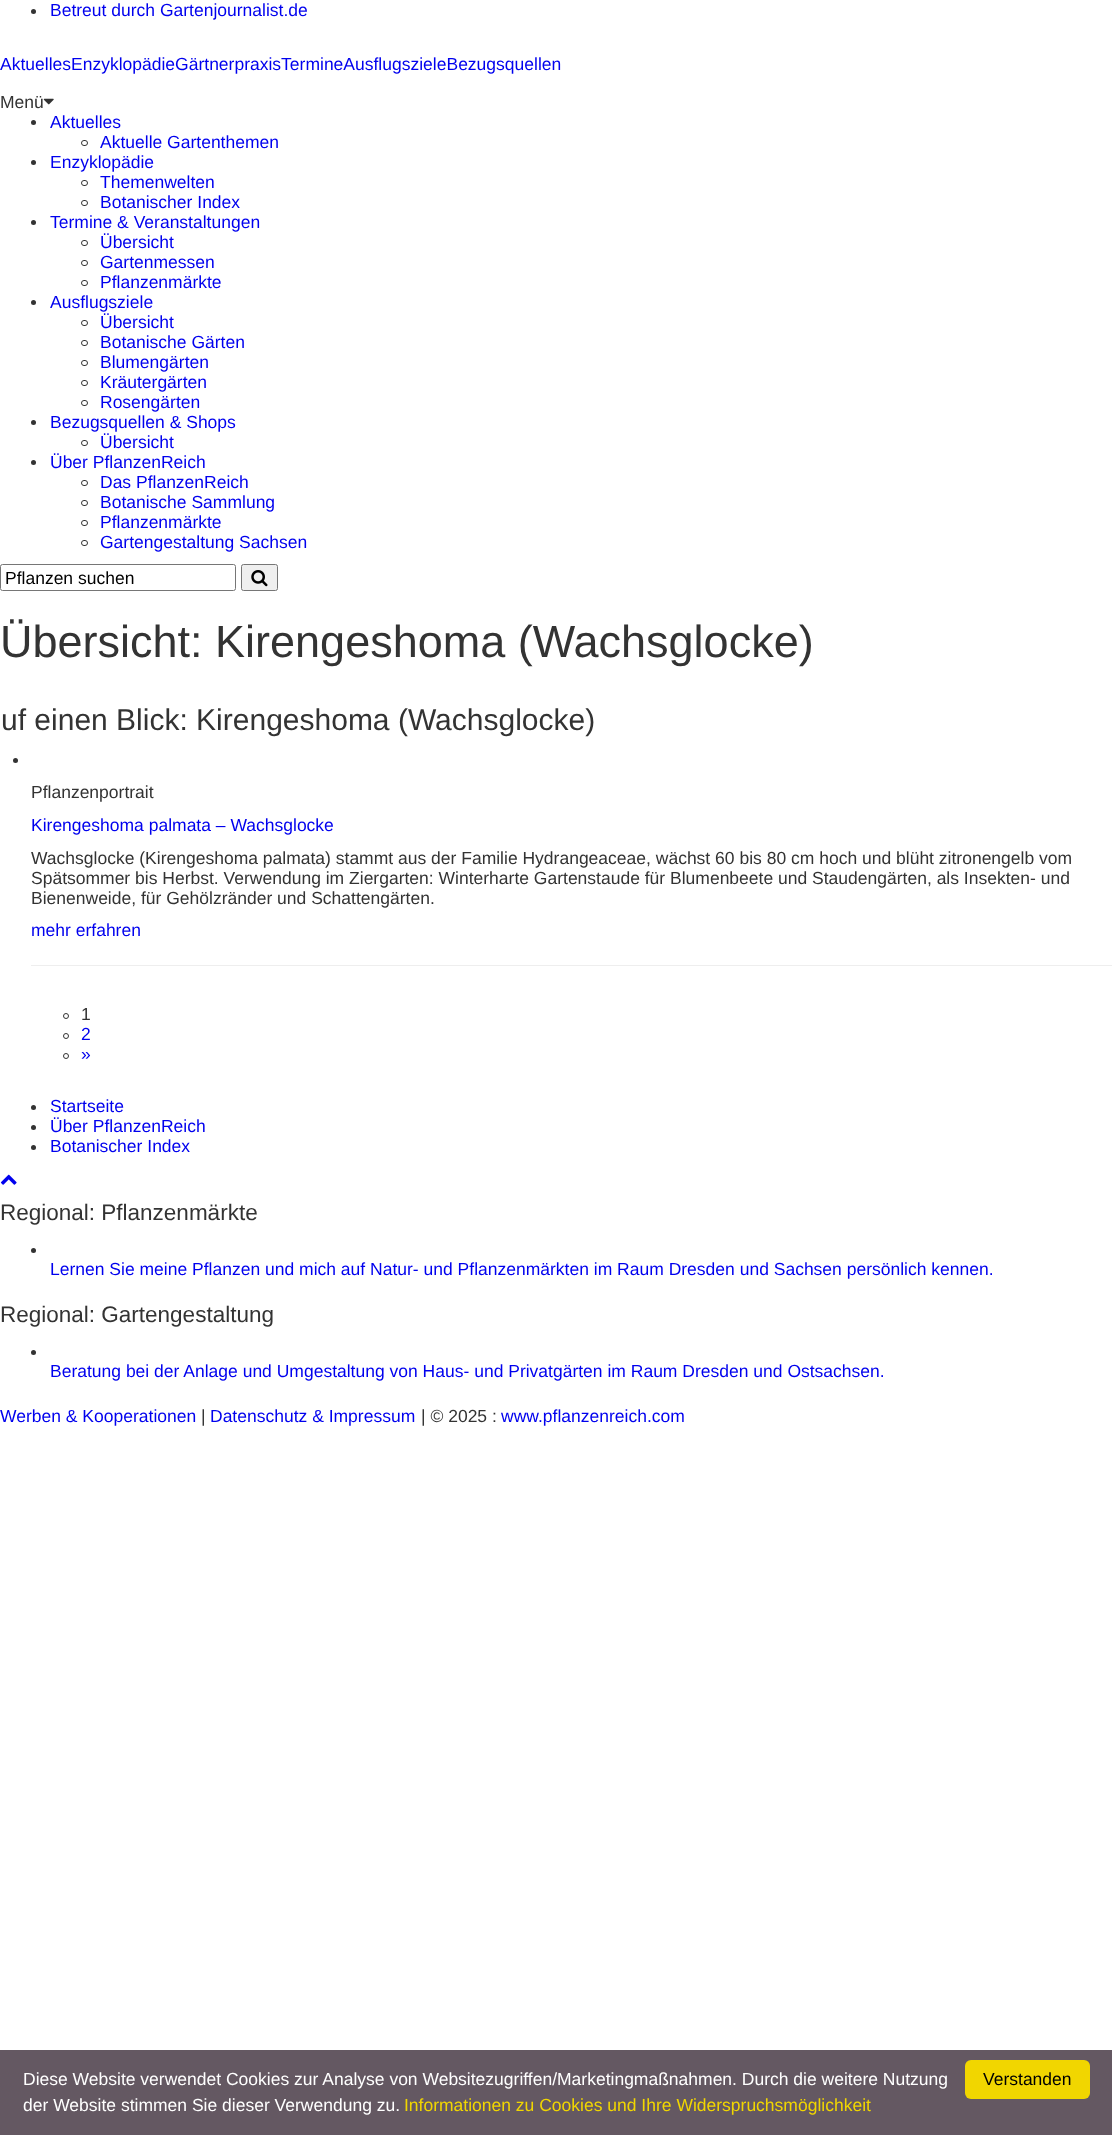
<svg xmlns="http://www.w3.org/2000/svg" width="1112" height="2135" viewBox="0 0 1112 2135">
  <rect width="100%" height="100%" fill="#ffffff"/>
  <circle cx="33.5" cy="11.5" r="2.5" fill="#333333"/>
  <text x="50" y="16" font-family="Liberation Sans" font-size="17.5" fill="#0000ee">Betreut durch Gartenjournalist.de</text>
  <text x="0" y="70" font-family="Liberation Sans" font-size="17.5" fill="#0000ee">AktuellesEnzyklopädieGärtnerpraxisTermineAusflugszieleBezugsquellen</text>
  <text x="0" y="108" font-family="Liberation Sans" font-size="17.5" fill="#333333">Menü</text>
  <image x="43" y="98" width="11" height="7" href="img1.png"/>
  <circle cx="33.5" cy="122.5" r="2.5" fill="#333333"/>
  <text x="50" y="128" font-family="Liberation Sans" font-size="17.5" fill="#0000ee">Aktuelles</text>
  <rect x="81.5" y="140.5" width="6" height="5" rx="2.5" fill="none" stroke="#333333"/>
  <text x="100" y="148" font-family="Liberation Sans" font-size="17.5" fill="#0000ee">Aktuelle Gartenthemen</text>
  <circle cx="33.5" cy="162.5" r="2.5" fill="#333333"/>
  <text x="50" y="168" font-family="Liberation Sans" font-size="17.5" fill="#0000ee">Enzyklopädie</text>
  <rect x="81.5" y="180.5" width="6" height="5" rx="2.5" fill="none" stroke="#333333"/>
  <text x="100" y="188" font-family="Liberation Sans" font-size="17.5" fill="#0000ee">Themenwelten</text>
  <rect x="81.5" y="200.5" width="6" height="5" rx="2.5" fill="none" stroke="#333333"/>
  <text x="100" y="208" font-family="Liberation Sans" font-size="17.5" fill="#0000ee">Botanischer Index</text>
  <circle cx="33.5" cy="222.5" r="2.5" fill="#333333"/>
  <text x="50" y="228" font-family="Liberation Sans" font-size="17.5" fill="#0000ee">Termine &amp; Veranstaltungen</text>
  <rect x="81.5" y="240.5" width="6" height="5" rx="2.5" fill="none" stroke="#333333"/>
  <text x="100" y="248" font-family="Liberation Sans" font-size="17.5" fill="#0000ee">Übersicht</text>
  <rect x="81.5" y="260.5" width="6" height="5" rx="2.5" fill="none" stroke="#333333"/>
  <text x="100" y="268" font-family="Liberation Sans" font-size="17.5" fill="#0000ee">Gartenmessen</text>
  <rect x="81.5" y="280.5" width="6" height="5" rx="2.5" fill="none" stroke="#333333"/>
  <text x="100" y="288" font-family="Liberation Sans" font-size="17.5" fill="#0000ee">Pflanzenmärkte</text>
  <circle cx="33.5" cy="302.5" r="2.5" fill="#333333"/>
  <text x="50" y="308" font-family="Liberation Sans" font-size="17.5" fill="#0000ee">Ausflugsziele</text>
  <rect x="81.5" y="320.5" width="6" height="5" rx="2.5" fill="none" stroke="#333333"/>
  <text x="100" y="328" font-family="Liberation Sans" font-size="17.5" fill="#0000ee">Übersicht</text>
  <rect x="81.5" y="340.5" width="6" height="5" rx="2.5" fill="none" stroke="#333333"/>
  <text x="100" y="348" font-family="Liberation Sans" font-size="17.5" fill="#0000ee">Botanische Gärten</text>
  <rect x="81.5" y="360.5" width="6" height="5" rx="2.5" fill="none" stroke="#333333"/>
  <text x="100" y="368" font-family="Liberation Sans" font-size="17.5" fill="#0000ee">Blumengärten</text>
  <rect x="81.5" y="380.5" width="6" height="5" rx="2.5" fill="none" stroke="#333333"/>
  <text x="100" y="388" font-family="Liberation Sans" font-size="17.5" fill="#0000ee">Kräutergärten</text>
  <rect x="81.5" y="400.5" width="6" height="5" rx="2.5" fill="none" stroke="#333333"/>
  <text x="100" y="408" font-family="Liberation Sans" font-size="17.5" fill="#0000ee">Rosengärten</text>
  <circle cx="33.5" cy="422.5" r="2.5" fill="#333333"/>
  <text x="50" y="428" font-family="Liberation Sans" font-size="17.5" fill="#0000ee">Bezugsquellen &amp; Shops</text>
  <rect x="81.5" y="440.5" width="6" height="5" rx="2.5" fill="none" stroke="#333333"/>
  <text x="100" y="448" font-family="Liberation Sans" font-size="17.5" fill="#0000ee">Übersicht</text>
  <circle cx="33.5" cy="462.5" r="2.5" fill="#333333"/>
  <text x="50" y="468" font-family="Liberation Sans" font-size="17.5" fill="#0000ee">Über PflanzenReich</text>
  <rect x="81.5" y="480.5" width="6" height="5" rx="2.5" fill="none" stroke="#333333"/>
  <text x="100" y="488" font-family="Liberation Sans" font-size="17.5" fill="#0000ee">Das PflanzenReich</text>
  <rect x="81.5" y="500.5" width="6" height="5" rx="2.5" fill="none" stroke="#333333"/>
  <text x="100" y="508" font-family="Liberation Sans" font-size="17.5" fill="#0000ee">Botanische Sammlung</text>
  <rect x="81.5" y="520.5" width="6" height="5" rx="2.5" fill="none" stroke="#333333"/>
  <text x="100" y="528" font-family="Liberation Sans" font-size="17.5" fill="#0000ee">Pflanzenmärkte</text>
  <rect x="81.5" y="540.5" width="6" height="5" rx="2.5" fill="none" stroke="#333333"/>
  <text x="100" y="548" font-family="Liberation Sans" font-size="17.5" fill="#0000ee">Gartengestaltung Sachsen</text>
  <rect x="0.5" y="564.5" width="235" height="26" rx="2" fill="none" stroke="#767676"/>
  <text x="5" y="584" font-family="Liberation Sans" font-size="17.5" fill="#000000">Pflanzen suchen</text>
  <rect x="241.5" y="564.5" width="36" height="26" rx="2" fill="#efefef" stroke="#767676"/>
  <image x="251" y="570" width="17" height="17" href="img2.png"/>
  <text x="0" y="657" font-family="Liberation Sans" font-size="45" fill="#333333">Übersicht: Kirengeshoma (Wachsglocke)</text>
  <text x="1" y="730" font-family="Liberation Sans" font-size="30" fill="#333333">uf einen Blick: Kirengeshoma (Wachsglocke)</text>
  <circle cx="15.5" cy="760.5" r="2.5" fill="#333333"/>
  <text x="31" y="798" font-family="Liberation Sans" font-size="17.5" fill="#333333">Pflanzenportrait</text>
  <text x="31" y="831" font-family="Liberation Sans" font-size="17.5" fill="#0000ee">Kirengeshoma palmata – Wachsglocke</text>
  <text x="31" y="864" font-family="Liberation Sans" font-size="17.5" fill="#333333">Wachsglocke (Kirengeshoma palmata) stammt aus der Familie Hydrangeaceae, wächst 60 bis 80 cm hoch und blüht zitronengelb vom</text>
  <text x="31" y="884" font-family="Liberation Sans" font-size="17.5" fill="#333333">Spätsommer bis Herbst. Verwendung im Ziergarten: Winterharte Gartenstaude für Blumenbeete und Staudengärten, als Insekten- und</text>
  <text x="31" y="904" font-family="Liberation Sans" font-size="17.5" fill="#333333">Bienenweide, für Gehölzränder und Schattengärten.</text>
  <text x="31" y="936" font-family="Liberation Sans" font-size="17.5" fill="#0000ee">mehr erfahren</text>
  <rect x="31" y="965" width="1081" height="1" fill="#eeeeee"/>
  <circle cx="66" cy="1016" r="2.5" fill="none" stroke="#333333"/>
  <text x="81" y="1020" font-family="Liberation Sans" font-size="17.5" fill="#333333">1</text>
  <circle cx="66" cy="1036" r="2.5" fill="none" stroke="#333333"/>
  <text x="81" y="1040" font-family="Liberation Sans" font-size="17.5" fill="#0000ee">2</text>
  <circle cx="66" cy="1056" r="2.5" fill="none" stroke="#333333"/>
  <text x="81" y="1060" font-family="Liberation Sans" font-size="17.5" fill="#0000ee">»</text>
  <circle cx="33.5" cy="1107.5" r="2.5" fill="#333333"/>
  <text x="50" y="1112" font-family="Liberation Sans" font-size="17.5" fill="#0000ee">Startseite</text>
  <circle cx="33.5" cy="1127.5" r="2.5" fill="#333333"/>
  <text x="50" y="1132" font-family="Liberation Sans" font-size="17.5" fill="#0000ee">Über PflanzenReich</text>
  <circle cx="33.5" cy="1147.5" r="2.5" fill="#333333"/>
  <text x="50" y="1152" font-family="Liberation Sans" font-size="17.5" fill="#0000ee">Botanischer Index</text>
  <image x="0" y="1174" width="17" height="11" href="img3.png"/>
  <text x="0" y="1220" font-family="Liberation Sans" font-size="22.5" fill="#333333">Regional: Pflanzenmärkte</text>
  <circle cx="33.5" cy="1250.5" r="2.5" fill="#333333"/>
  <text x="50" y="1275" font-family="Liberation Sans" font-size="17.5" fill="#0000ee">Lernen Sie meine Pflanzen und mich auf Natur- und Pflanzenmärkten im Raum Dresden und Sachsen persönlich kennen.</text>
  <text x="0" y="1322" font-family="Liberation Sans" font-size="22.5" fill="#333333">Regional: Gartengestaltung</text>
  <circle cx="33.5" cy="1352.5" r="2.5" fill="#333333"/>
  <text x="50" y="1377" font-family="Liberation Sans" font-size="17.5" fill="#0000ee">Beratung bei der Anlage und Umgestaltung von Haus- und Privatgärten im Raum Dresden und Ostsachsen.</text>
  <text x="0" y="1422" font-family="Liberation Sans" font-size="17.5" fill="#0000ee">Werben &amp; Kooperationen</text>
  <text x="201" y="1422" font-family="Liberation Sans" font-size="17.5" fill="#333333">|</text>
  <text x="210" y="1422" font-family="Liberation Sans" font-size="17.5" fill="#0000ee">Datenschutz &amp; Impressum</text>
  <text x="421" y="1422" font-family="Liberation Sans" font-size="17.5" fill="#333333">| © 2025 :</text>
  <text x="501" y="1422" font-family="Liberation Sans" font-size="17.5" fill="#0000ee">www.pflanzenreich.com</text>
  <rect x="0" y="2050" width="1112" height="85" fill="#645862"/>
  <text x="23" y="2085" font-family="Liberation Sans" font-size="17.5" fill="#ffffff">Diese Website verwendet Cookies zur Analyse von Websitezugriffen/Marketingmaßnahmen. Durch die weitere Nutzung</text>
  <text x="23" y="2111" font-family="Liberation Sans" font-size="17.5" fill="#ffffff">der Website stimmen Sie dieser Verwendung zu.</text>
  <text x="404" y="2111" font-family="Liberation Sans" font-size="17.5" fill="#f1d600">Informationen zu Cookies und Ihre Widerspruchsmöglichkeit</text>
  <rect x="965" y="2060" width="125" height="39" rx="6" fill="#f1d600"/>
  <text x="983" y="2085" font-family="Liberation Sans" font-size="17.5" fill="#000000">Verstanden</text>
</svg>
